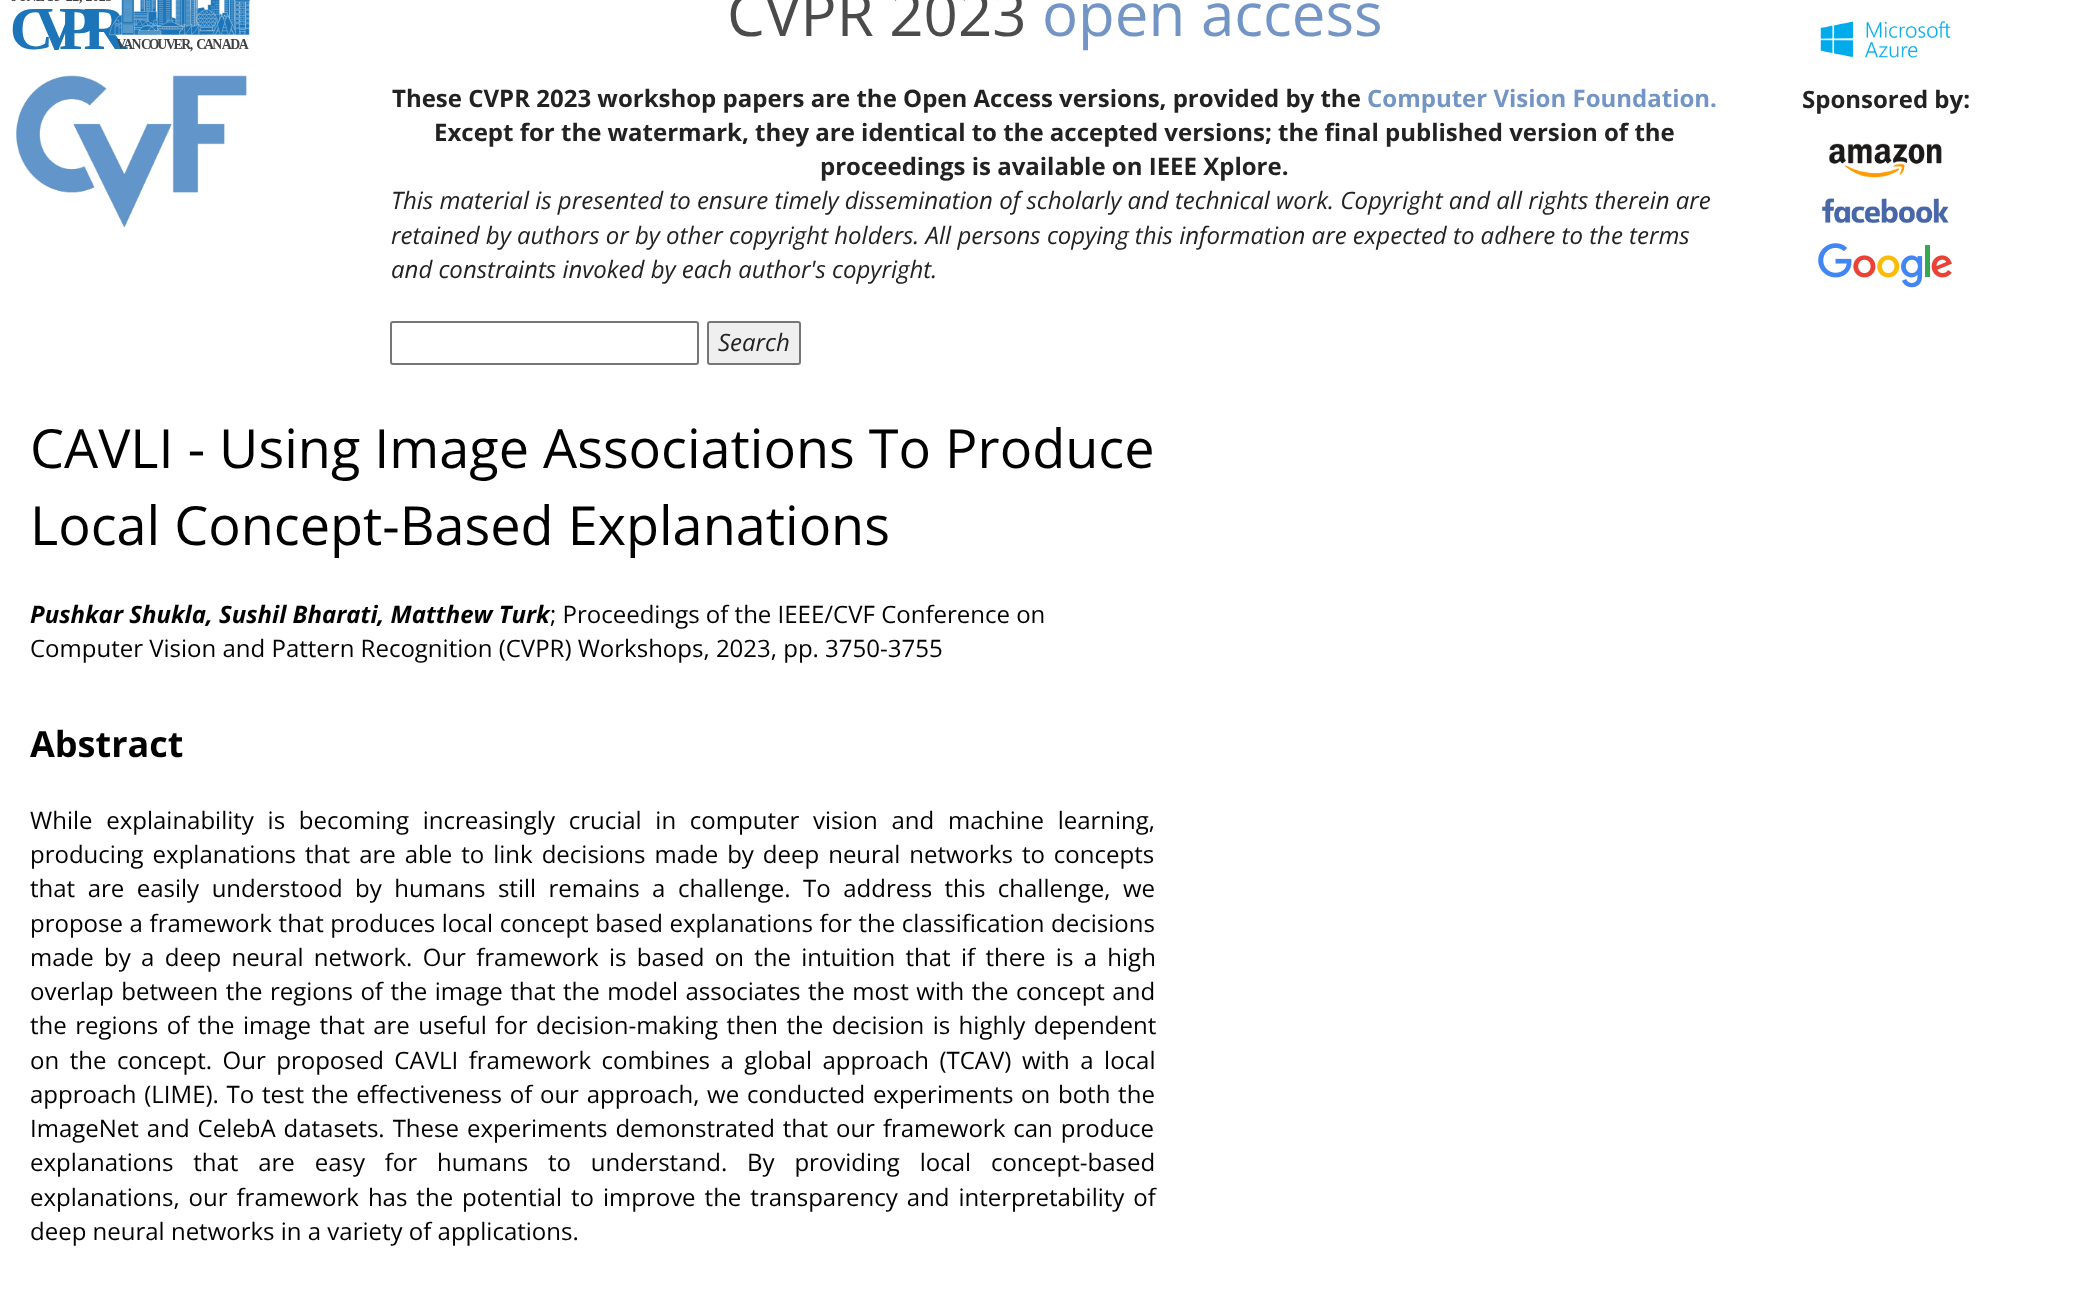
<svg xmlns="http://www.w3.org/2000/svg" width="2095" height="1303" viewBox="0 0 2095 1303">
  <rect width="100%" height="100%" fill="#ffffff"/>
  <image x="11" y="0" width="239" height="52" href="img1.png"/>
  <image x="16" y="75" width="231" height="153" href="img2.png"/>
  <text x="727" y="36" font-family="Open Sans" font-size="60" fill="#4c4b4b">CVPR 2023</text>
  <text x="1042" y="36" font-family="Open Sans" font-size="60" fill="#7395c5">open access</text>
  <text x="392" y="107" font-family="Open Sans" font-size="24" font-weight="bold" fill="#222222">These CVPR 2023 workshop papers are the Open Access versions, provided by the</text>
  <text x="1367" y="107" font-family="Open Sans" font-size="24" font-weight="bold" fill="#7395c5">Computer Vision Foundation.</text>
  <text x="434" y="141" font-family="Open Sans" font-size="24" font-weight="bold" fill="#222222">Except for the watermark, they are identical to the accepted versions; the final published version of the</text>
  <text x="820" y="175" font-family="Open Sans" font-size="24" font-weight="bold" fill="#222222">proceedings is available on IEEE Xplore.</text>
  <text x="391" y="209" font-family="Open Sans" font-size="24" font-style="italic" fill="#222222">This material is presented to ensure timely dissemination of scholarly and technical work. Copyright and all rights therein are</text>
  <text x="391" y="244" font-family="Open Sans" font-size="24" font-style="italic" fill="#222222">retained by authors or by other copyright holders. All persons copying this information are expected to adhere to the terms</text>
  <text x="391" y="278" font-family="Open Sans" font-size="24" font-style="italic" fill="#222222">and constraints invoked by each author's copyright.</text>
  <rect x="391" y="322" width="307" height="42" rx="2" fill="none" stroke="#767676" stroke-width="2"/>
  <rect x="708" y="322" width="92" height="42" rx="2" fill="#efefef" stroke="#767676" stroke-width="2"/>
  <text x="718" y="351" font-family="Open Sans" font-size="24" font-style="italic" fill="#222222">Search</text>
  <image x="1820" y="20" width="131" height="38" href="img3.png"/>
  <text x="1802" y="108" font-family="Open Sans" font-size="24" font-weight="bold" fill="#222222">Sponsored by:</text>
  <image x="1829" y="143" width="113" height="35" href="img4.png"/>
  <image x="1821" y="198" width="128" height="25" href="img5.png"/>
  <image x="1818" y="243" width="134" height="45" href="img6.png"/>
  <text x="30" y="468" font-family="Open Sans" font-size="54" fill="#000000">CAVLI - Using Image Associations To Produce</text>
  <text x="30" y="545" font-family="Open Sans" font-size="54" fill="#000000">Local Concept-Based Explanations</text>
  <text x="30" y="623" font-family="Open Sans" font-size="24" font-weight="bold" font-style="italic" fill="#000000">Pushkar Shukla, Sushil Bharati, Matthew Turk</text>
  <text x="550" y="623" font-family="Open Sans" font-size="24" fill="#000000">; Proceedings of the IEEE/CVF Conference on</text>
  <text x="30" y="657" font-family="Open Sans" font-size="24" fill="#000000">Computer Vision and Pattern Recognition (CVPR) Workshops, 2023, pp. 3750-3755</text>
  <text x="30" y="757" font-family="Open Sans" font-size="36" font-weight="bold" fill="#000000">Abstract</text>
  <text x="30" y="829" word-spacing="7.5" font-family="Open Sans" font-size="24" fill="#000000">While explainability is becoming increasingly crucial in computer vision and machine learning,</text>
  <text x="30" y="863" word-spacing="2.75" font-family="Open Sans" font-size="24" fill="#000000">producing explanations that are able to link decisions made by deep neural networks to concepts</text>
  <text x="30" y="897" word-spacing="6.25" font-family="Open Sans" font-size="24" fill="#000000">that are easily understood by humans still remains a challenge. To address this challenge, we</text>
  <text x="30" y="932" word-spacing="0.4" font-family="Open Sans" font-size="24" fill="#000000">propose a framework that produces local concept based explanations for the classification decisions</text>
  <text x="30" y="966" word-spacing="4.1" font-family="Open Sans" font-size="24" fill="#000000">made by a deep neural network. Our framework is based on the intuition that if there is a high</text>
  <text x="30" y="1000" word-spacing="1.25" font-family="Open Sans" font-size="24" fill="#000000">overlap between the regions of the image that the model associates the most with the concept and</text>
  <text x="30" y="1034" word-spacing="2.25" font-family="Open Sans" font-size="24" fill="#000000">the regions of the image that are useful for decision-making then the decision is highly dependent</text>
  <text x="30" y="1069" word-spacing="4.25" font-family="Open Sans" font-size="24" fill="#000000">on the concept. Our proposed CAVLI framework combines a global approach (TCAV) with a local</text>
  <text x="30" y="1103" word-spacing="1.5" font-family="Open Sans" font-size="24" fill="#000000">approach (LIME). To test the effectiveness of our approach, we conducted experiments on both the</text>
  <text x="30" y="1137" word-spacing="1.75" font-family="Open Sans" font-size="24" fill="#000000">ImageNet and CelebA datasets. These experiments demonstrated that our framework can produce</text>
  <text x="30" y="1171" word-spacing="13.6" font-family="Open Sans" font-size="24" fill="#000000">explanations that are easy for humans to understand. By providing local concept-based</text>
  <text x="30" y="1206" word-spacing="2.75" font-family="Open Sans" font-size="24" fill="#000000">explanations, our framework has the potential to improve the transparency and interpretability of</text>
  <text x="30" y="1240" font-family="Open Sans" font-size="24" fill="#000000">deep neural networks in a variety of applications.</text>
</svg>
